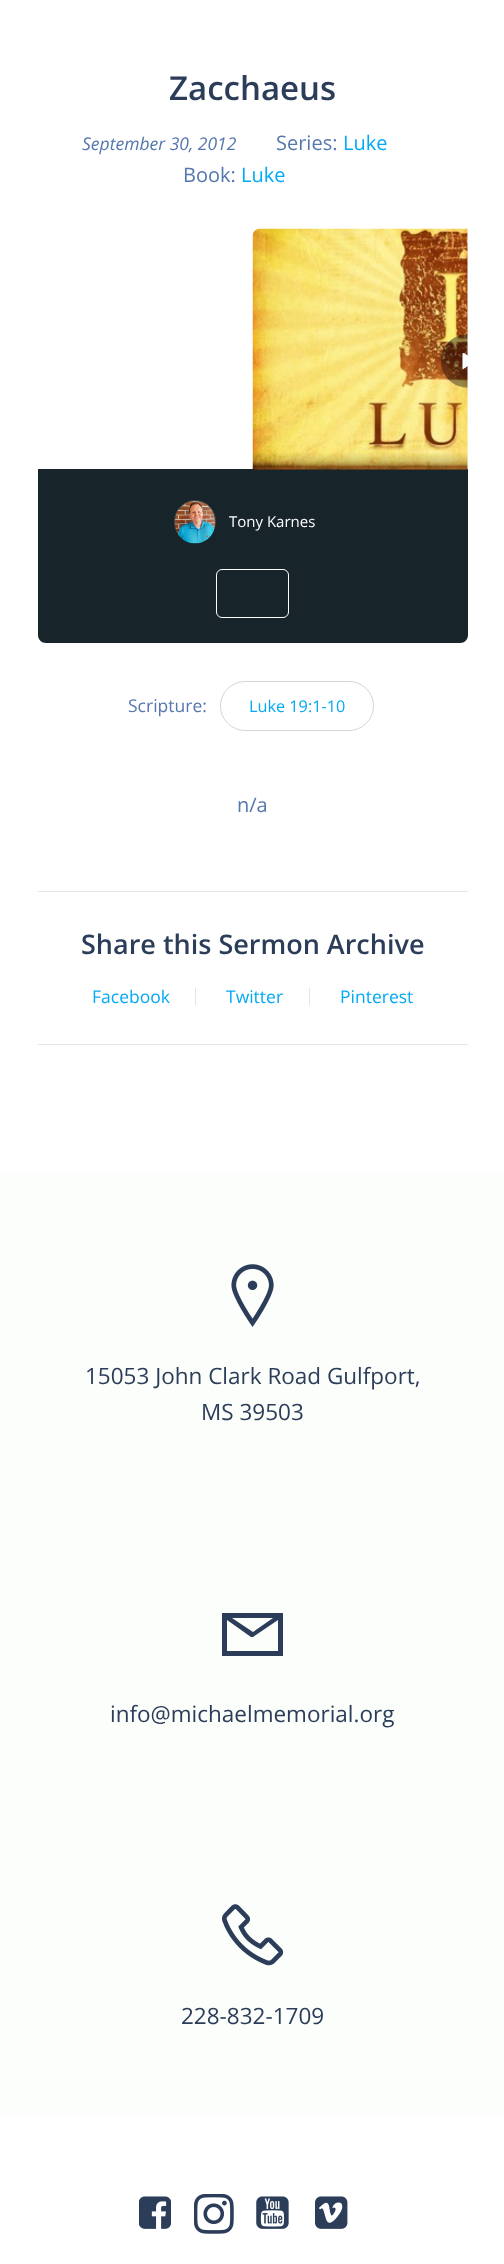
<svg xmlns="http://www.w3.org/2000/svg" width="504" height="2264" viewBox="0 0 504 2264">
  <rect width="100%" height="100%" fill="#ffffff"/>
  <text x="169" y="100" font-family="Open Sans" font-size="33" font-weight="600" fill="#2b3d58">Zacchaeus</text>
  <text x="82" y="150" font-family="Open Sans" font-size="17.5" font-style="italic" fill="#5577ad">September 30, 2012</text>
  <text x="276" y="150" font-family="Open Sans" font-size="20" fill="#5577ad">Series:</text>
  <text x="343" y="150" font-family="Open Sans" font-size="20" fill="#03a9f4">Luke</text>
  <text x="183" y="182" font-family="Open Sans" font-size="20" fill="#5577ad">Book:</text>
  <text x="241" y="182" font-family="Open Sans" font-size="20" fill="#03a9f4">Luke</text>
  <path d="M38 469H468V635C468 639.5 464.5 643 460 643H46C41.5 643 38 639.5 38 635Z" fill="#17242a"/>
  <image x="252" y="228" width="216" height="242" href="img1.png"/>
  <rect x="174.5" y="500.5" width="41" height="42" rx="20.5" fill="none" stroke="#3c474c"/>
  <image x="175" y="501" width="40" height="43" href="img2.png"/>
  <text x="229" y="527" font-family="Open Sans" font-size="15" fill="#ffffff">Tony Karnes</text>
  <rect x="216.5" y="569.5" width="72" height="48" rx="5.5" fill="none" stroke="#ffffff"/>
  <text x="128" y="712" font-family="Open Sans" font-size="17.5" fill="#5577ad">Scripture:</text>
  <rect x="220.5" y="681.5" width="153" height="49" rx="24.5" fill="none" stroke="#d5d5d5"/>
  <text x="249" y="712" font-family="Open Sans" font-size="16.25" fill="#03a9f4">Luke 19:1-10</text>
  <text x="237" y="812" font-family="Open Sans" font-size="20" fill="#5577ad">n/a</text>
  <rect x="38" y="891" width="430" height="1" fill="#e9e5de"/>
  <rect x="38" y="1044" width="430" height="1" fill="#e9e5de"/>
  <text x="81" y="954" font-family="Open Sans" font-size="27" font-weight="600" fill="#2b3d58">Share this Sermon Archive</text>
  <rect x="195" y="988" width="1" height="17" fill="#e9e5de"/>
  <text x="92" y="1003" font-family="Open Sans" font-size="17.5" fill="#03a9f4">Facebook</text>
  <rect x="309" y="988" width="1" height="17" fill="#e9e5de"/>
  <text x="226" y="1003" font-family="Open Sans" font-size="17.5" fill="#03a9f4">Twitter</text>
  <text x="340" y="1003" font-family="Open Sans" font-size="17.5" fill="#03a9f4">Pinterest</text>
  <rect x="0" y="1173" width="504" height="336" fill="#fcfefb"/>
  <image x="231" y="1264" width="43" height="63" href="img3.png"/>
  <text x="85" y="1384" font-family="Open Sans" font-size="22.5" fill="#2b3d58">15053 John Clark Road Gulfport,</text>
  <text x="201" y="1420" font-family="Open Sans" font-size="22.5" fill="#2b3d58">MS 39503</text>
  <rect x="0" y="1510" width="504" height="303" fill="#fcfefb"/>
  <path d="M222 1613H283V1656H222ZM232 1618L253 1632L273 1618ZM227 1620V1651H278V1620L253 1637H251Z" fill="#2b3d58"/>
  <text x="110" y="1722" font-family="Open Sans" font-size="22.5" fill="#2b3d58">info@michaelmemorial.org</text>
  <rect x="0" y="1813" width="504" height="301" fill="#fbfefa"/>
  <image x="222" y="1904" width="62" height="62" href="img4.png"/>
  <text x="181" y="2024" font-family="Open Sans" font-size="22.5" fill="#2b3d58">228-832-1709</text>
  <image x="139" y="2196" width="32" height="33" href="img5.png"/>
  <image x="194" y="2194" width="40" height="40" href="img6.png"/>
  <image x="256" y="2196" width="33" height="33" href="img7.png"/>
  <image x="315" y="2196" width="33" height="33" href="img8.png"/>
</svg>
